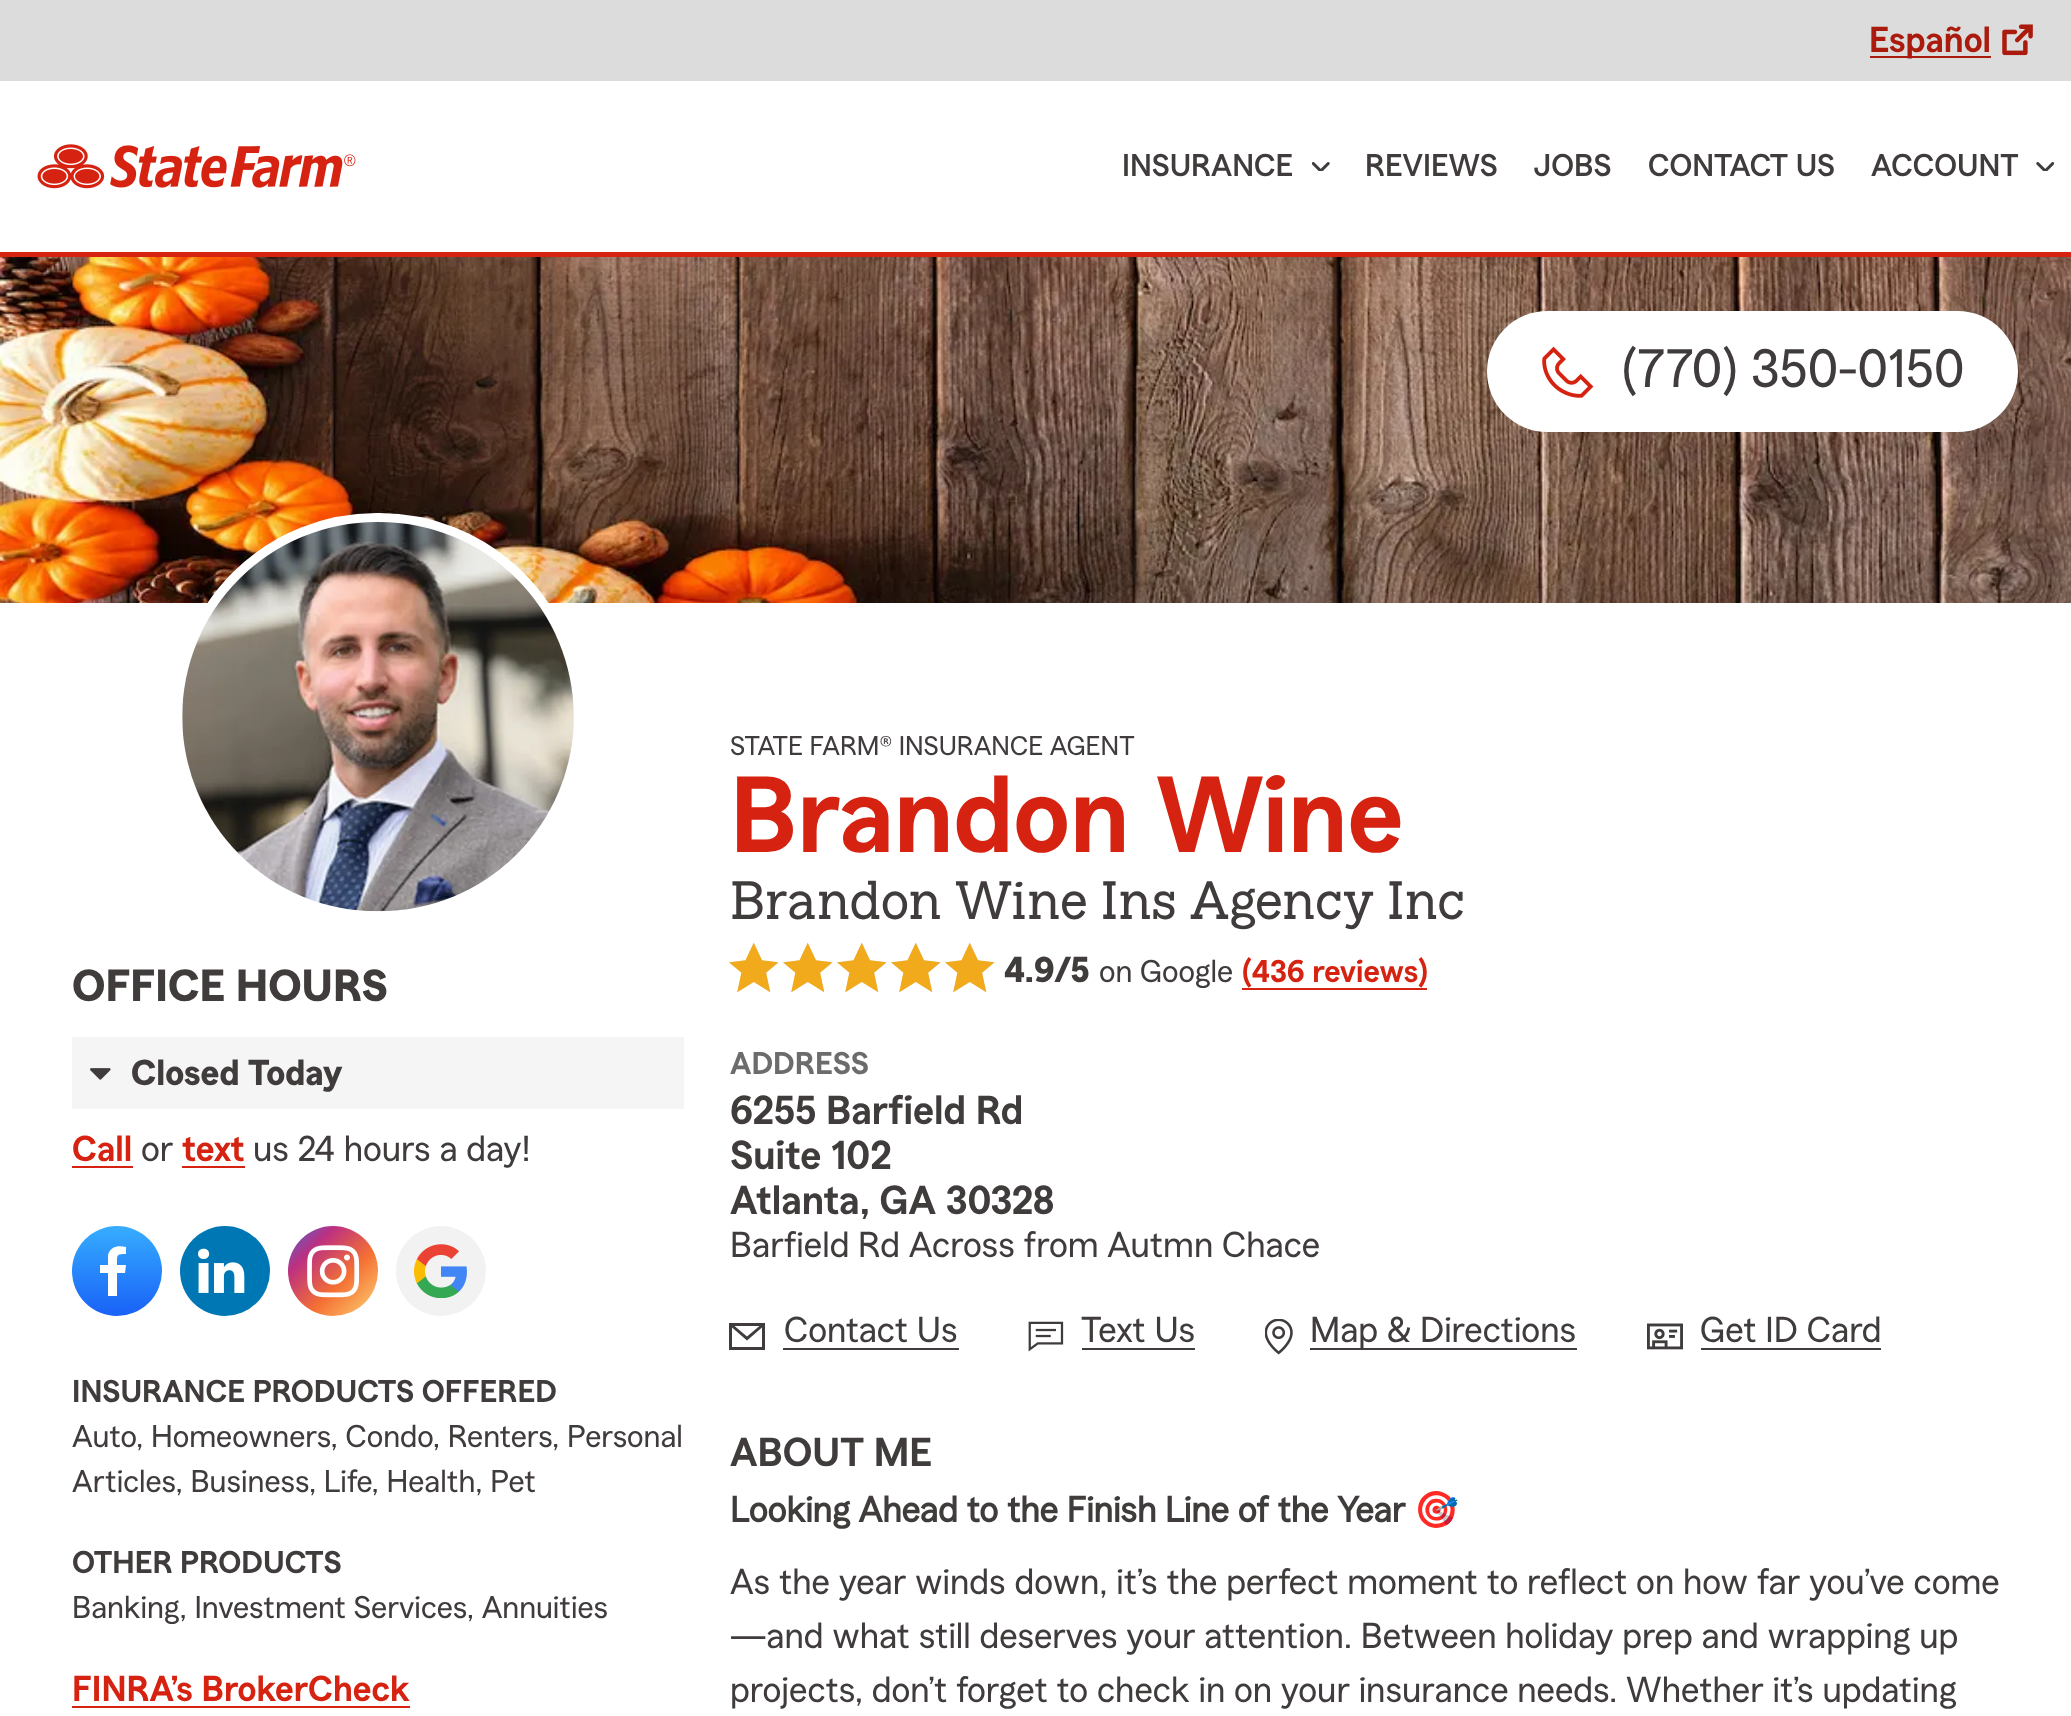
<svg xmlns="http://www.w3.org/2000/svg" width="2071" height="1716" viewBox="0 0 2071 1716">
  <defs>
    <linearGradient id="g1" gradientUnits="userSpaceOnUse" x1="117" y1="1316" x2="117" y2="1226"><stop offset="0" stop-color="#1961f7"/><stop offset="1" stop-color="#36adff"/></linearGradient>
    <linearGradient id="g2" gradientUnits="userSpaceOnUse" x1="288" y1="1226" x2="378" y2="1316"><stop offset="0" stop-color="#4c63d2"/><stop offset="0.26" stop-color="#bc3081"/><stop offset="0.61" stop-color="#f47133"/><stop offset="1" stop-color="#fed576"/></linearGradient>
  </defs>
  <rect width="100%" height="100%" fill="#ffffff"/>
  <rect x="0" y="0" width="2071" height="81" fill="#dcdcdc"/>
  <rect x="1870" y="56" width="121" height="2" fill="#aa1b0d"/>
  <text x="1869" y="52" font-family="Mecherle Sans" font-size="36" font-weight="600" fill="#aa1b0d">Español</text>
  <image x="2002" y="24" width="31" height="32" href="img1.png"/>
  <rect x="0" y="252" width="2071" height="5" fill="#d62311"/>
  <image x="37" y="144" width="319" height="45" href="img2.png"/>
  <text x="1122" y="176" font-family="Mecherle Sans" font-size="31.5" font-weight="500" fill="#403c3c">INSURANCE</text>
  <image x="1312" y="162" width="18" height="9" href="img3.png"/>
  <text x="1365" y="176" font-family="Mecherle Sans" font-size="31.5" font-weight="500" fill="#403c3c">REVIEWS</text>
  <text x="1533" y="176" font-family="Mecherle Sans" font-size="31.5" font-weight="500" fill="#403c3c">JOBS</text>
  <text x="1648" y="176" font-family="Mecherle Sans" font-size="31.5" font-weight="500" fill="#403c3c">CONTACT US</text>
  <text x="1871" y="176" font-family="Mecherle Sans" font-size="31.5" font-weight="500" fill="#403c3c">ACCOUNT</text>
  <image x="2036" y="162" width="18" height="9" href="img4.png"/>
  <image x="0" y="257" width="2071" height="346" href="img5.png"/>
  <rect x="1487" y="311" width="531" height="121" rx="60.5" fill="#ffffff"/>
  <image x="1542" y="346" width="52" height="52" href="img6.png"/>
  <text x="1622" y="387" font-family="Mecherle Sans" font-size="54" fill="#403c3c">(770) 350-0150</text>
  <rect x="177.5" y="517.5" width="401" height="398" rx="199" fill="#f5f5f5" stroke="#ffffff" stroke-width="9"/>
  <image x="182" y="522" width="392" height="390" href="img7.png"/>
  <text x="72" y="1001" font-family="Mecherle Sans" font-size="45" font-weight="bold" fill="#403c3c">OFFICE HOURS</text>
  <rect x="72" y="1037" width="612" height="72" fill="#f5f5f5"/>
  <image x="90" y="1068" width="21" height="12" href="img8.png"/>
  <text x="131" y="1085" font-family="Mecherle Sans" font-size="36" font-weight="bold" fill="#403c3c">Closed Today</text>
  <text x="72" y="1161" font-family="Mecherle Sans" font-size="36" font-weight="600" fill="#d62311">Call</text>
  <rect x="72" y="1166" width="61" height="2" fill="#d62311"/>
  <text x="141" y="1161" font-family="Mecherle Sans" font-size="36" fill="#403c3c">or</text>
  <text x="182" y="1161" font-family="Mecherle Sans" font-size="36" font-weight="600" fill="#d62311">text</text>
  <rect x="182" y="1166" width="63" height="2" fill="#d62311"/>
  <text x="253" y="1161" font-family="Mecherle Sans" font-size="36" fill="#403c3c">us 24 hours a day!</text>
  <circle cx="117" cy="1271" r="45" fill="url(#g1)"/>
  <path d="M126 1247V1254C116 1254 117 1255 117 1265H126L125 1273H117V1296H108V1273H100V1265H108V1255C110 1246 119 1245 126 1247Z" fill="#ffffff"/>
  <circle cx="225" cy="1271" r="45" fill="#0077b5"/>
  <image x="198" y="1248" width="47" height="45" href="img9.png"/>
  <circle cx="333" cy="1271" r="45" fill="url(#g2)"/>
  <image x="307" y="1245" width="53" height="53" href="img10.png"/>
  <circle cx="441" cy="1271" r="45" fill="#f2f2f2"/>
  <image x="414" y="1244" width="53" height="54" href="img11.png"/>
  <text x="72" y="1402" font-family="Mecherle Sans" font-size="31.5" font-weight="600" fill="#403c3c">INSURANCE PRODUCTS OFFERED</text>
  <text x="72" y="1447" font-family="Mecherle Sans" font-size="31.5" fill="#403c3c">Auto, Homeowners, Condo, Renters, Personal</text>
  <text x="72" y="1492" font-family="Mecherle Sans" font-size="31.5" fill="#403c3c">Articles, Business, Life, Health, Pet</text>
  <text x="72" y="1573" font-family="Mecherle Sans" font-size="31.5" font-weight="600" fill="#403c3c">OTHER PRODUCTS</text>
  <text x="72" y="1618" font-family="Mecherle Sans" font-size="31.5" fill="#403c3c">Banking, Investment Services, Annuities</text>
  <text x="72" y="1701" font-family="Mecherle Sans" font-size="36" font-weight="600" fill="#d62311">FINRA’s BrokerCheck</text>
  <rect x="72" y="1706" width="338" height="2" fill="#d62311"/>
  <text x="730" y="755" font-family="Mecherle Sans" font-size="27" fill="#403c3c">STATE FARM® INSURANCE AGENT</text>
  <text x="730" y="852" font-family="Mecherle Sans" font-size="108" font-weight="600" fill="#d62311">Brandon Wine</text>
  <text x="730" y="919" font-family="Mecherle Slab" font-size="54" fill="#403c3c">Brandon Wine Ins Agency Inc</text>
  <image x="729" y="943" width="50" height="49" href="img12.png"/>
  <image x="783" y="943" width="50" height="49" href="img12.png"/>
  <image x="837" y="943" width="50" height="49" href="img12.png"/>
  <image x="891" y="943" width="50" height="49" href="img12.png"/>
  <image x="945" y="943" width="50" height="49" href="img12.png"/>
  <text x="1004" y="982" font-family="Mecherle Sans" font-size="36" font-weight="bold" fill="#403c3c">4.9/5</text>
  <text x="1099" y="982" font-family="Mecherle Sans" font-size="31.5" fill="#403c3c">on Google</text>
  <text x="1242" y="982" font-family="Mecherle Sans" font-size="31.5" font-weight="600" fill="#d62311">(436 reviews)</text>
  <rect x="1242" y="988" width="185" height="2" fill="#d62311"/>
  <text x="730" y="1074" font-family="Mecherle Sans" font-size="31.5" font-weight="600" fill="#6c6c6c">ADDRESS</text>
  <text x="730" y="1124" font-family="Mecherle Sans" font-size="40.5" font-weight="600" fill="#403c3c">6255 Barfield Rd</text>
  <text x="730" y="1169" font-family="Mecherle Sans" font-size="40.5" font-weight="600" fill="#403c3c">Suite 102</text>
  <text x="730" y="1214" font-family="Mecherle Sans" font-size="40.5" font-weight="600" fill="#403c3c">Atlanta, GA 30328</text>
  <text x="730" y="1257" font-family="Mecherle Sans" font-size="36" fill="#403c3c">Barfield Rd Across from Autmn Chace</text>
  <path d="M729 1323H765V1350H729ZM732 1327.5V1347H762V1327.5L747 1340.5ZM759.5 1326H734.5L747 1336.5Z" fill="#403c3c" fill-rule="evenodd"/>
  <text x="784" y="1342" font-family="Mecherle Sans" font-size="36" fill="#403c3c">Contact Us</text>
  <rect x="783" y="1348" width="176" height="2" fill="#403c3c"/>
  <image x="1028" y="1321" width="36" height="31" href="img13.png"/>
  <text x="1081" y="1342" font-family="Mecherle Sans" font-size="36" fill="#403c3c">Text Us</text>
  <rect x="1082" y="1348" width="113" height="2" fill="#403c3c"/>
  <image x="1265" y="1319" width="28" height="36" href="img14.png"/>
  <rect x="1310" y="1348" width="267" height="2" fill="#403c3c"/>
  <text x="1310" y="1342" font-family="Mecherle Sans" font-size="36" fill="#403c3c">Map &amp; Directions</text>
  <image x="1647" y="1323" width="36" height="27" href="img15.png"/>
  <text x="1700" y="1342" font-family="Mecherle Sans" font-size="36" fill="#403c3c">Get ID Card</text>
  <rect x="1701" y="1348" width="180" height="2" fill="#403c3c"/>
  <text x="730" y="1466" font-family="Mecherle Sans" font-size="40.5" font-weight="600" fill="#403c3c">ABOUT ME</text>
  <text x="730" y="1522" font-family="'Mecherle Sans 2'" font-size="36" font-weight="bold" fill="#403c3c">Looking Ahead to the Finish Line of the Year</text>
  <text x="1414" y="1522" font-family="Noto Color Emoji" font-size="36" font-weight="bold" fill="#403c3c">🎯</text>
  <text x="730" y="1594" font-family="Mecherle Sans" font-size="36" fill="#403c3c">As the year winds down, it’s the perfect moment to reflect on how far you’ve come</text>
  <text x="730" y="1648" font-family="Mecherle Sans" font-size="36" fill="#403c3c">—and what still deserves your attention. Between holiday prep and wrapping up</text>
  <text x="730" y="1702" font-family="Mecherle Sans" font-size="36" fill="#403c3c">projects, don’t forget to check in on your insurance needs. Whether it’s updating</text>
</svg>
